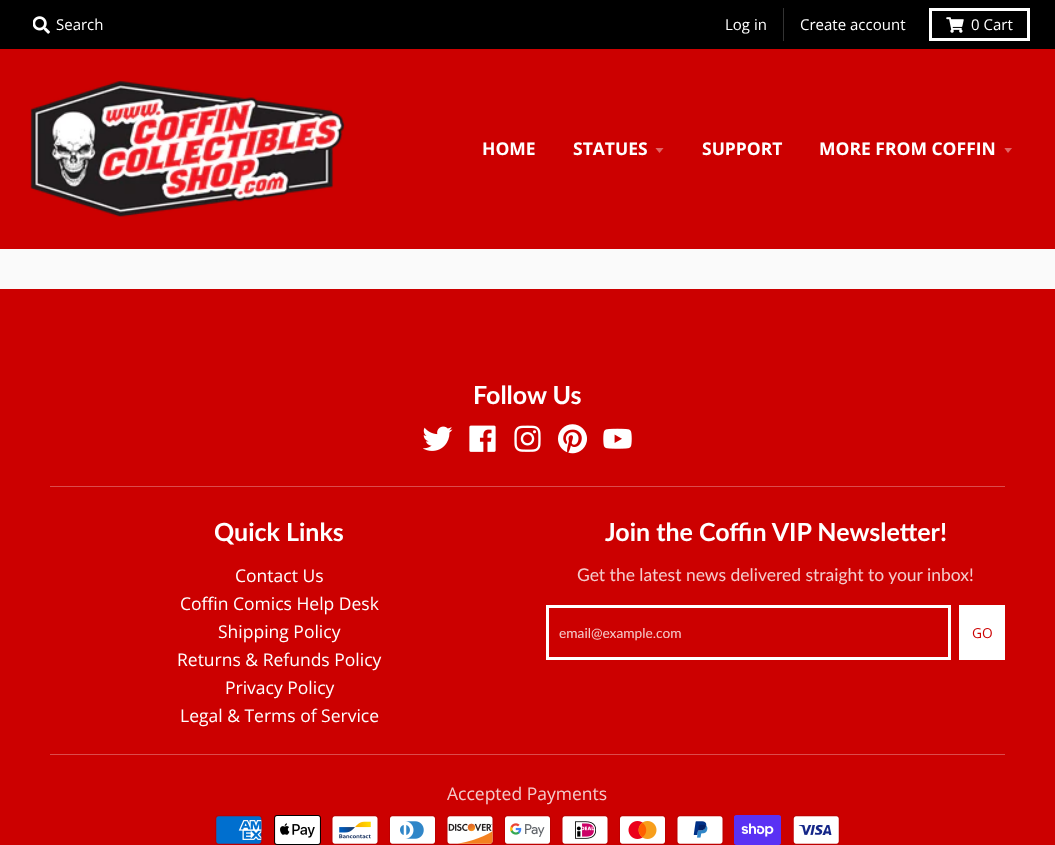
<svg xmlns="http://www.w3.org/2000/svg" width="1055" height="845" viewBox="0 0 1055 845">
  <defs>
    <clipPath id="clip1"><rect x="655" y="148" width="10" height="6"/></clipPath>
    <clipPath id="clip2"><rect x="1004" y="148" width="10" height="6"/></clipPath>
  </defs>
  <rect width="100%" height="100%" fill="#fafafa"/>
  <rect x="0" y="0" width="1055" height="49" fill="#000000"/>
  <image x="33" y="16" width="17" height="18" href="img1.png"/>
  <text x="56" y="30" font-family="Open Sans" font-size="15" fill="#ffffff">Search</text>
  <rect x="783" y="8" width="1" height="33" fill="#333333"/>
  <text x="725" y="30" font-family="Open Sans" font-size="15" fill="#ffffff">Log in</text>
  <text x="800" y="30" font-family="Open Sans" font-size="15" fill="#ffffff">Create account</text>
  <rect x="930.5" y="9.5" width="98" height="30" fill="none" stroke="#ffffff" stroke-width="3"/>
  <image x="946" y="17" width="18" height="16" href="img2.png"/>
  <text x="971" y="30" font-family="Open Sans" font-size="15" fill="#ffffff">0 Cart</text>
  <rect x="0" y="49" width="1055" height="200" fill="#cc0000"/>
  <image x="30" y="80" width="315" height="137" href="img3.png"/>
  <text x="482" y="155" font-family="Open Sans" font-size="17.5" font-weight="bold" fill="#ffffff">HOME</text>
  <text x="573" y="155" font-family="Open Sans" font-size="17.5" font-weight="bold" fill="#ffffff">STATUES</text>
  <g clip-path="url(#clip1)">
    <path d="M655 147.5L659.5 153L664 147.5Z" fill="#e06666"/>
  </g>
  <text x="702" y="155" font-family="Open Sans" font-size="17.5" font-weight="bold" fill="#ffffff">SUPPORT</text>
  <text x="819" y="155" font-family="Open Sans" font-size="17.5" font-weight="bold" fill="#ffffff">MORE FROM COFFIN</text>
  <g clip-path="url(#clip2)">
    <path d="M1004 147.5L1008 153L1012.5 147.5Z" fill="#e06666"/>
  </g>
  <rect x="0" y="289" width="1055" height="556" fill="#cc0000"/>
  <text x="473" y="404" font-family="Lato" font-size="25" font-weight="bold" fill="#ffffff">Follow Us</text>
  <rect x="50" y="486" width="955" height="1" fill="#db4c4c"/>
  <image x="423" y="426" width="30" height="25" href="img4.png"/>
  <image x="469" y="425" width="27" height="27" href="img5.png"/>
  <image x="514" y="425" width="27" height="27" href="img6.png"/>
  <image x="558" y="424" width="29" height="30" href="img7.png"/>
  <image x="603" y="428" width="29" height="21" href="img8.png"/>
  <text x="214" y="541" font-family="Lato" font-size="25" font-weight="bold" fill="#ffffff">Quick Links</text>
  <text x="235" y="582" font-family="Open Sans" font-size="17.5" fill="#ffffff">Contact Us</text>
  <text x="180" y="610" font-family="Open Sans" font-size="17.5" fill="#ffffff">Coffin Comics Help Desk</text>
  <text x="218" y="638" font-family="Open Sans" font-size="17.5" fill="#ffffff">Shipping Policy</text>
  <text x="177" y="666" font-family="Open Sans" font-size="17.5" fill="#ffffff">Returns &amp; Refunds Policy</text>
  <text x="225" y="694" font-family="Open Sans" font-size="17.5" fill="#ffffff">Privacy Policy</text>
  <text x="180" y="722" font-family="Open Sans" font-size="17.5" fill="#ffffff">Legal &amp; Terms of Service</text>
  <text x="605" y="541" font-family="Lato" font-size="25" font-weight="bold" fill="#ffffff">Join the Coffin VIP Newsletter!</text>
  <text x="577" y="581" font-family="Lato" font-size="17.5" fill="#f4cccc">Get the latest news delivered straight to your inbox!</text>
  <rect x="547.5" y="606.5" width="402" height="52" fill="none" stroke="#ffffff" stroke-width="3"/>
  <text x="559" y="638" font-family="Lato" font-size="13.75" fill="#f4cccc">email@example.com</text>
  <rect x="959" y="605" width="46" height="55" fill="#ffffff"/>
  <text x="972" y="638" font-family="Open Sans" font-size="13.75" fill="#cc0000">GO</text>
  <rect x="50" y="754" width="955" height="1" fill="#db4c4c"/>
  <text x="447" y="800" font-family="Open Sans" font-size="17.5" fill="#f4cccc">Accepted Payments</text>
  <image x="215" y="815" width="48" height="30" href="img9.png"/>
  <image x="274" y="815" width="47" height="30" href="img10.png"/>
  <image x="331" y="815" width="48" height="30" href="img11.png"/>
  <image x="389" y="815" width="47" height="30" href="img12.png"/>
  <image x="446" y="815" width="48" height="30" href="img13.png"/>
  <image x="504" y="815" width="47" height="30" href="img14.png"/>
  <image x="561" y="815" width="48" height="30" href="img15.png"/>
  <image x="619" y="815" width="47" height="30" href="img16.png"/>
  <image x="676" y="815" width="48" height="30" href="img17.png"/>
  <image x="734" y="815" width="47" height="30" href="img18.png"/>
  <image x="793" y="815" width="47" height="30" href="img19.png"/>
</svg>
